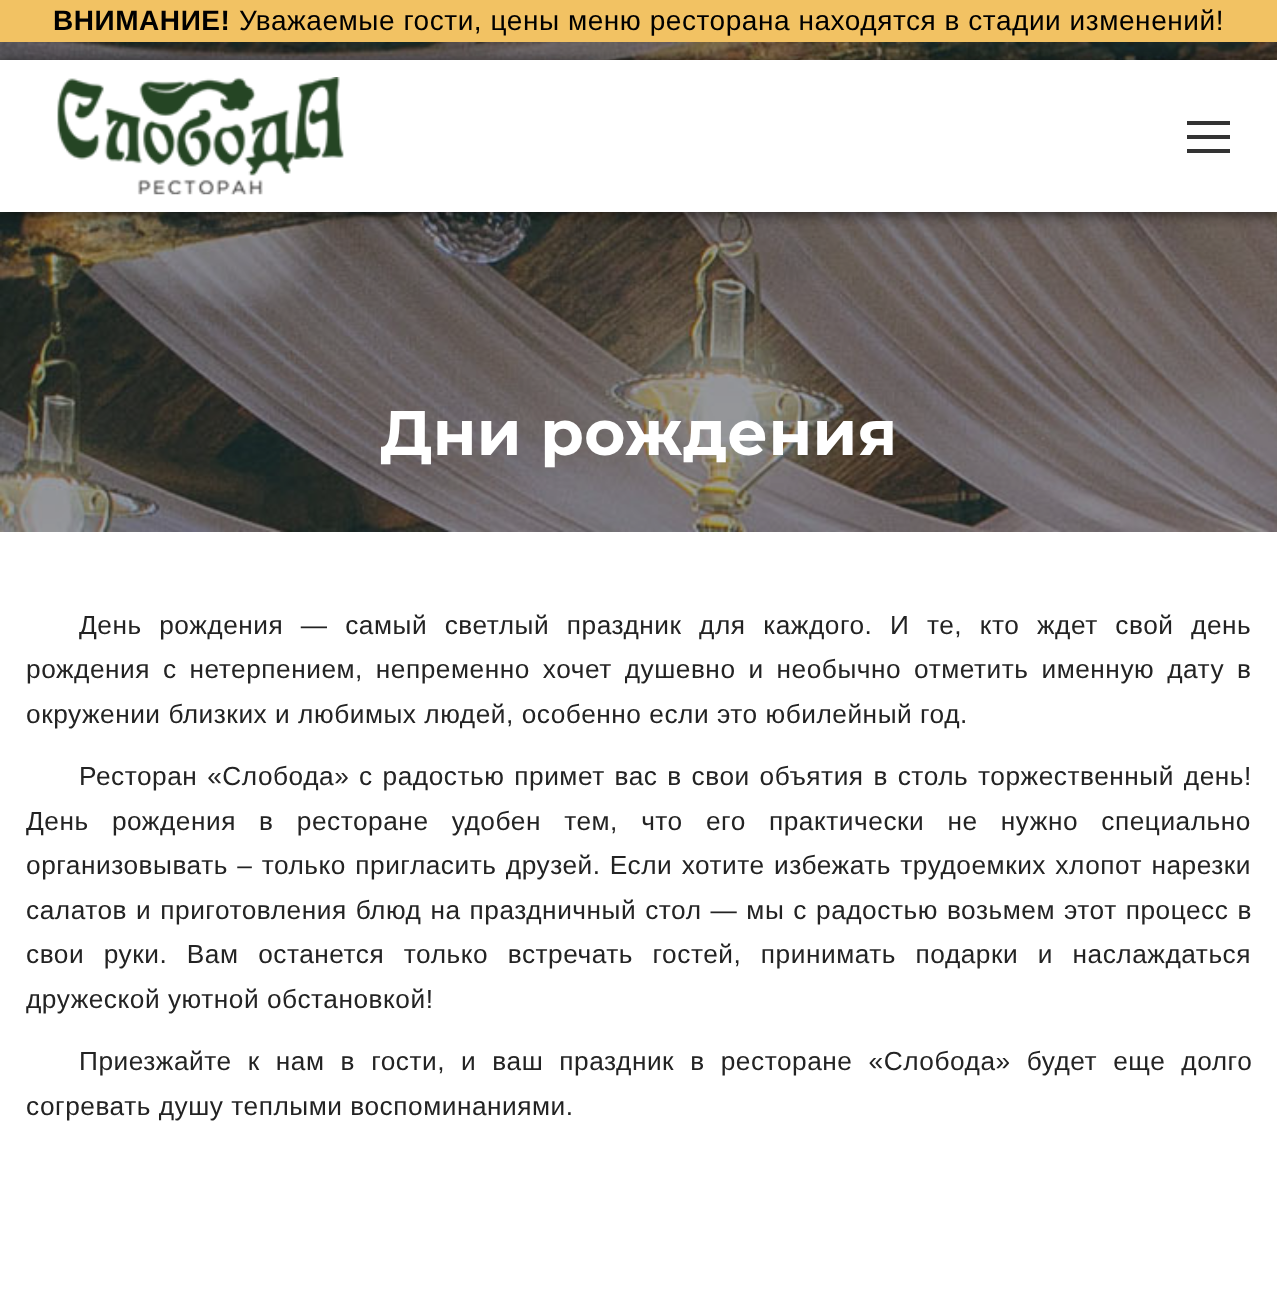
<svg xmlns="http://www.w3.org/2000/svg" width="1277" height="1298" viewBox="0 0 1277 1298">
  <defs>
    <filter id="blur1" x="-50%" y="-200%" width="200%" height="500%"><feGaussianBlur stdDeviation="7"/></filter>
  </defs>
  <rect width="100%" height="100%" fill="#ffffff"/>
  <rect x="0" y="0" width="1277" height="42" fill="#f2c263"/>
  <text x="53" y="30" font-family="Liberation Sans" font-size="28" font-weight="bold" letter-spacing="0.55" fill="#000000">ВНИМАНИЕ!</text>
  <text x="239" y="30" font-family="Liberation Sans" font-size="28" letter-spacing="0.55" fill="#000000">Уважаемые гости, цены меню ресторана находятся в стадии изменений!</text>
  <image x="0" y="42" width="1277" height="490" href="img2.png"/>
  <rect x="0" y="61" width="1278" height="153" fill="#000000" fill-opacity="0.58" filter="url(#blur1)"/>
  <rect x="0" y="60" width="1277" height="152" fill="#ffffff"/>
  <image x="57" y="77" width="287" height="118" href="img1.png"/>
  <rect x="1187" y="135" width="43" height="4" fill="#333333"/>
  <rect x="1187" y="121" width="43" height="4" fill="#333333"/>
  <rect x="1187" y="149" width="43" height="4" fill="#333333"/>
  <text x="380" y="455" font-family="Montserrat" font-size="63" font-weight="bold" letter-spacing="0.4" fill="#ffffff">Дни рождения</text>
  <text x="79" y="634" word-spacing="9.75" font-family="Liberation Sans" font-size="26.25" letter-spacing="0.53" fill="#232323">День рождения — самый светлый праздник для каждого. И те, кто ждет свой день</text>
  <text x="26" y="678" word-spacing="5.1" font-family="Liberation Sans" font-size="26.25" letter-spacing="0.53" fill="#232323">рождения с нетерпением, непременно хочет душевно и необычно отметить именную дату в</text>
  <text x="26" y="723" font-family="Liberation Sans" font-size="26.25" letter-spacing="0.53" fill="#232323">окружении близких и любимых людей, особенно если это юбилейный год.</text>
  <text x="79" y="785" word-spacing="2" font-family="Liberation Sans" font-size="26.25" letter-spacing="0.53" fill="#232323">Ресторан «Слобода» с радостью примет вас в свои объятия в столь торжественный день!</text>
  <text x="26" y="830" word-spacing="15.4" font-family="Liberation Sans" font-size="26.25" letter-spacing="0.53" fill="#232323">День рождения в ресторане удобен тем, что его практически не нужно специально</text>
  <text x="26" y="874" word-spacing="1.5" font-family="Liberation Sans" font-size="26.25" letter-spacing="0.53" fill="#232323">организовывать – только пригласить друзей. Если хотите избежать трудоемких хлопот нарезки</text>
  <text x="26" y="919" word-spacing="1.2" font-family="Liberation Sans" font-size="26.25" letter-spacing="0.53" fill="#232323">салатов и приготовления блюд на праздничный стол — мы с радостью возьмем этот процесс в</text>
  <text x="26" y="963" word-spacing="11.75" font-family="Liberation Sans" font-size="26.25" letter-spacing="0.53" fill="#232323">свои руки. Вам останется только встречать гостей, принимать подарки и наслаждаться</text>
  <text x="26" y="1008" font-family="Liberation Sans" font-size="26.25" letter-spacing="0.53" fill="#232323">дружеской уютной обстановкой!</text>
  <text x="79" y="1070" word-spacing="8.25" font-family="Liberation Sans" font-size="26.25" letter-spacing="0.53" fill="#232323">Приезжайте к нам в гости, и ваш праздник в ресторане «Слобода» будет еще долго</text>
  <text x="26" y="1115" font-family="Liberation Sans" font-size="26.25" letter-spacing="0.53" fill="#232323">согревать душу теплыми воспоминаниями.</text>
</svg>
